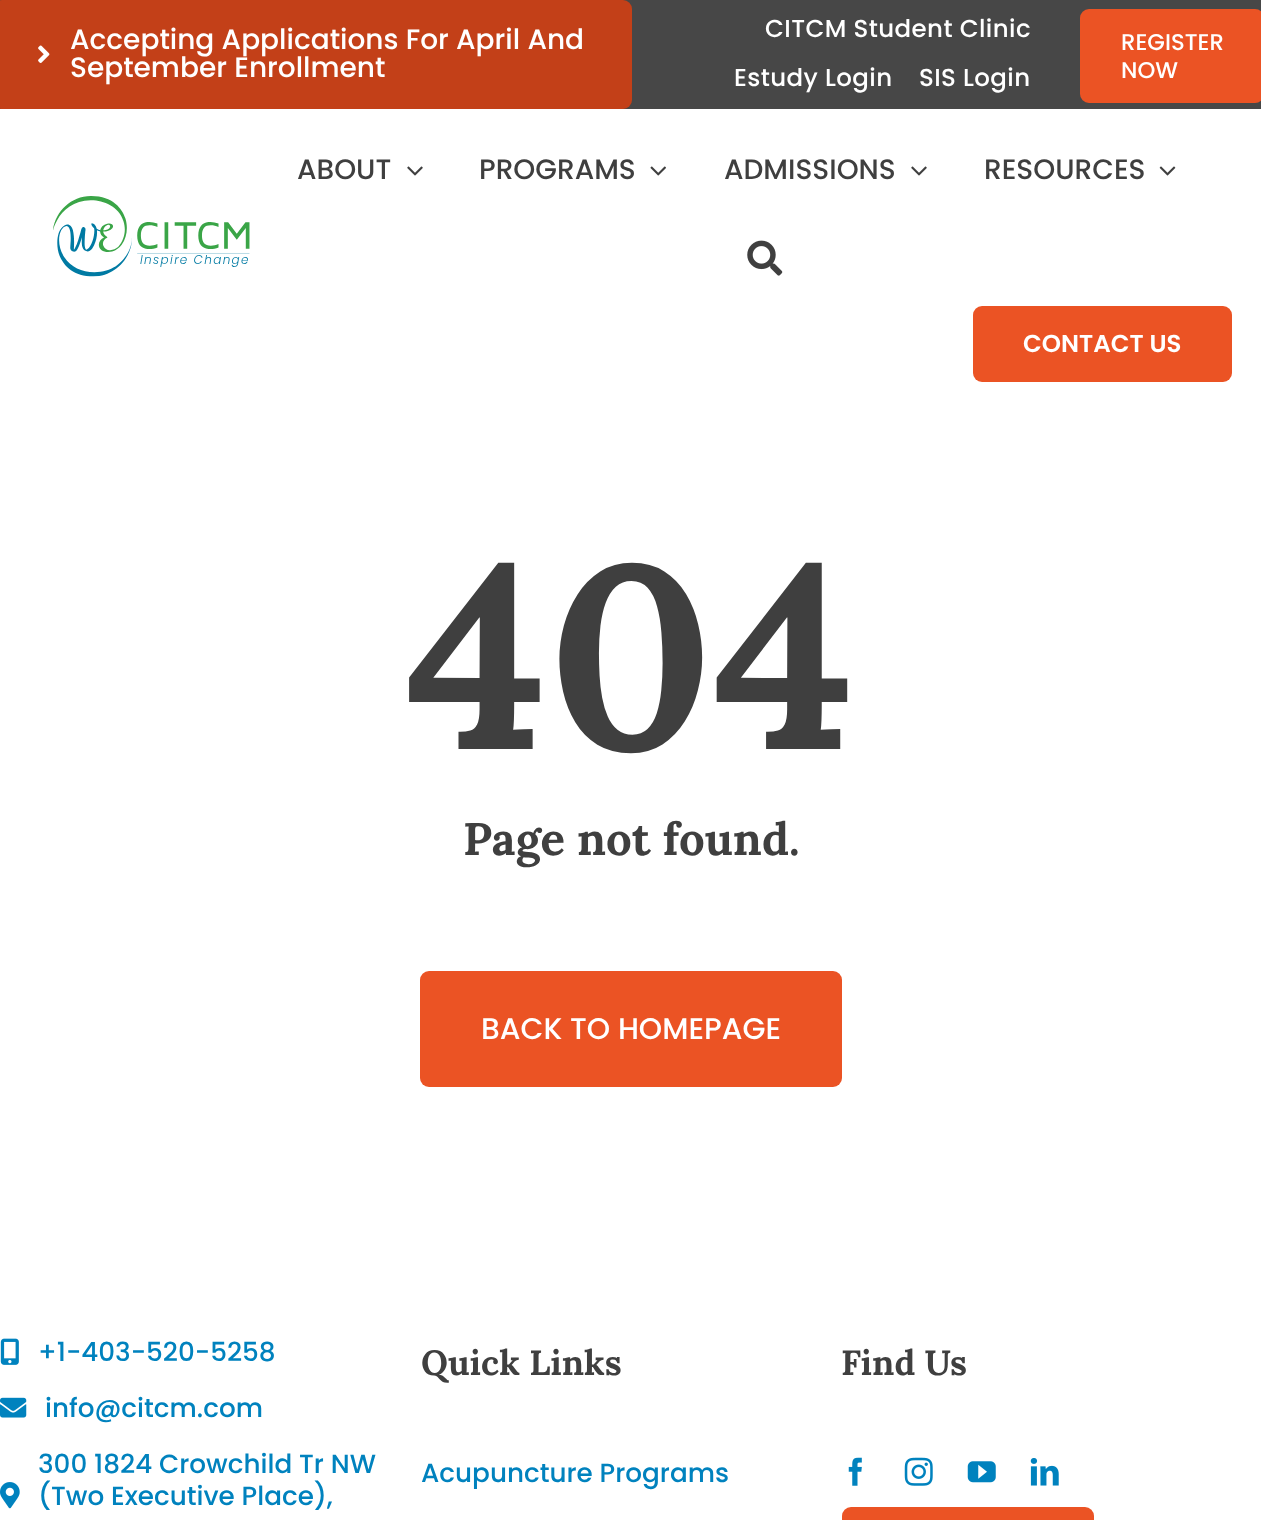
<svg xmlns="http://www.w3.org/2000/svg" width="1261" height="1520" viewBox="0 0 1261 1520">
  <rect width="100%" height="100%" fill="#ffffff"/>
  <rect x="0" y="0" width="1261" height="109" fill="#474747"/>
  <rect x="-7" y="0" width="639" height="109" rx="9" fill="#c34018"/>
  <image x="38" y="45" width="12" height="18" href="img1.png"/>
  <text x="70" y="49" font-family="Poppins" font-size="28" font-weight="500" fill="#ffffff">Accepting Applications For April And</text>
  <text x="70" y="77" font-family="Poppins" font-size="28" font-weight="500" fill="#ffffff">September Enrollment</text>
  <text x="765" y="37" font-family="Poppins" font-size="24.5" font-weight="500" letter-spacing="0.4" fill="#ffffff">CITCM Student Clinic</text>
  <text x="734" y="86" font-family="Poppins" font-size="24.5" font-weight="500" letter-spacing="0.4" fill="#ffffff">Estudy Login</text>
  <text x="919" y="86" font-family="Poppins" font-size="24.5" font-weight="500" letter-spacing="0.4" fill="#ffffff">SIS Login</text>
  <rect x="1080" y="9" width="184" height="94" rx="9" fill="#eb5324"/>
  <text x="1121" y="50" font-family="Poppins" font-size="22.75" font-weight="500" fill="#ffffff">REGISTER</text>
  <text x="1121" y="78" font-family="Poppins" font-size="22.75" font-weight="500" fill="#ffffff">NOW</text>
  <image x="53" y="196" width="197" height="81" href="img2.png"/>
  <text x="297" y="179" font-family="Poppins" font-size="28" font-weight="500" fill="#3f3f3f">ABOUT</text>
  <image x="407" y="166" width="16" height="10" href="img3.png"/>
  <text x="479" y="179" font-family="Poppins" font-size="28" font-weight="500" fill="#3f3f3f">PROGRAMS</text>
  <image x="650" y="166" width="16" height="10" href="img4.png"/>
  <text x="724" y="179" font-family="Poppins" font-size="28" font-weight="500" fill="#3f3f3f">ADMISSIONS</text>
  <image x="911" y="166" width="16" height="10" href="img3.png"/>
  <text x="984" y="179" font-family="Poppins" font-size="28" font-weight="500" fill="#3f3f3f">RESOURCES</text>
  <image x="1159" y="166" width="17" height="10" href="img5.png"/>
  <image x="747" y="240" width="36" height="36" href="img6.png"/>
  <rect x="973" y="306" width="259" height="76" rx="9" fill="#eb5324"/>
  <text x="1023" y="352" font-family="Poppins" font-size="24.5" font-weight="600" fill="#ffffff">CONTACT US</text>
  <text x="406" y="749" font-family="Lora" font-size="260" font-weight="bold" fill="#3f3f3f">404</text>
  <text x="463" y="855" font-family="Lora" font-size="45.5" font-weight="bold" fill="#3f3f3f">Page not found.</text>
  <rect x="420" y="971" width="422" height="116" rx="9" fill="#eb5324"/>
  <text x="481" y="1039" font-family="Poppins" font-size="29.75" font-weight="500" fill="#ffffff">BACK TO HOMEPAGE</text>
  <image x="0" y="1338" width="19" height="27" href="img7.png"/>
  <text x="38" y="1361" font-family="Poppins" font-size="26.25" font-weight="500" fill="#0082be">+1-403-520-5258</text>
  <image x="0" y="1397" width="27" height="21" href="img8.png"/>
  <text x="45" y="1417" font-family="Poppins" font-size="26.25" font-weight="500" fill="#0082be">info@citcm.com</text>
  <image x="0" y="1482" width="20" height="27" href="img9.png"/>
  <text x="38" y="1473" font-family="Poppins" font-size="26.25" font-weight="500" fill="#0082be">300 1824 Crowchild Tr NW</text>
  <text x="38" y="1505" font-family="Poppins" font-size="26.25" font-weight="500" fill="#0082be">(Two Executive Place),</text>
  <text x="421" y="1375" font-family="Lora" font-size="35" font-weight="bold" fill="#3f3f3f">Quick Links</text>
  <text x="421" y="1482" font-family="Poppins" font-size="26.25" font-weight="500" fill="#0082be">Acupuncture Programs</text>
  <text x="841" y="1375" font-family="Lora" font-size="35" font-weight="bold" fill="#3f3f3f">Find Us</text>
  <image x="848" y="1457" width="14" height="29" href="img10.png"/>
  <image x="904" y="1457" width="29" height="29" href="img11.png"/>
  <image x="967" y="1461" width="29" height="22" href="img12.png"/>
  <image x="1030" y="1458" width="29" height="28" href="img13.png"/>
  <rect x="842" y="1507" width="252" height="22" rx="9" fill="#eb5324"/>
</svg>
